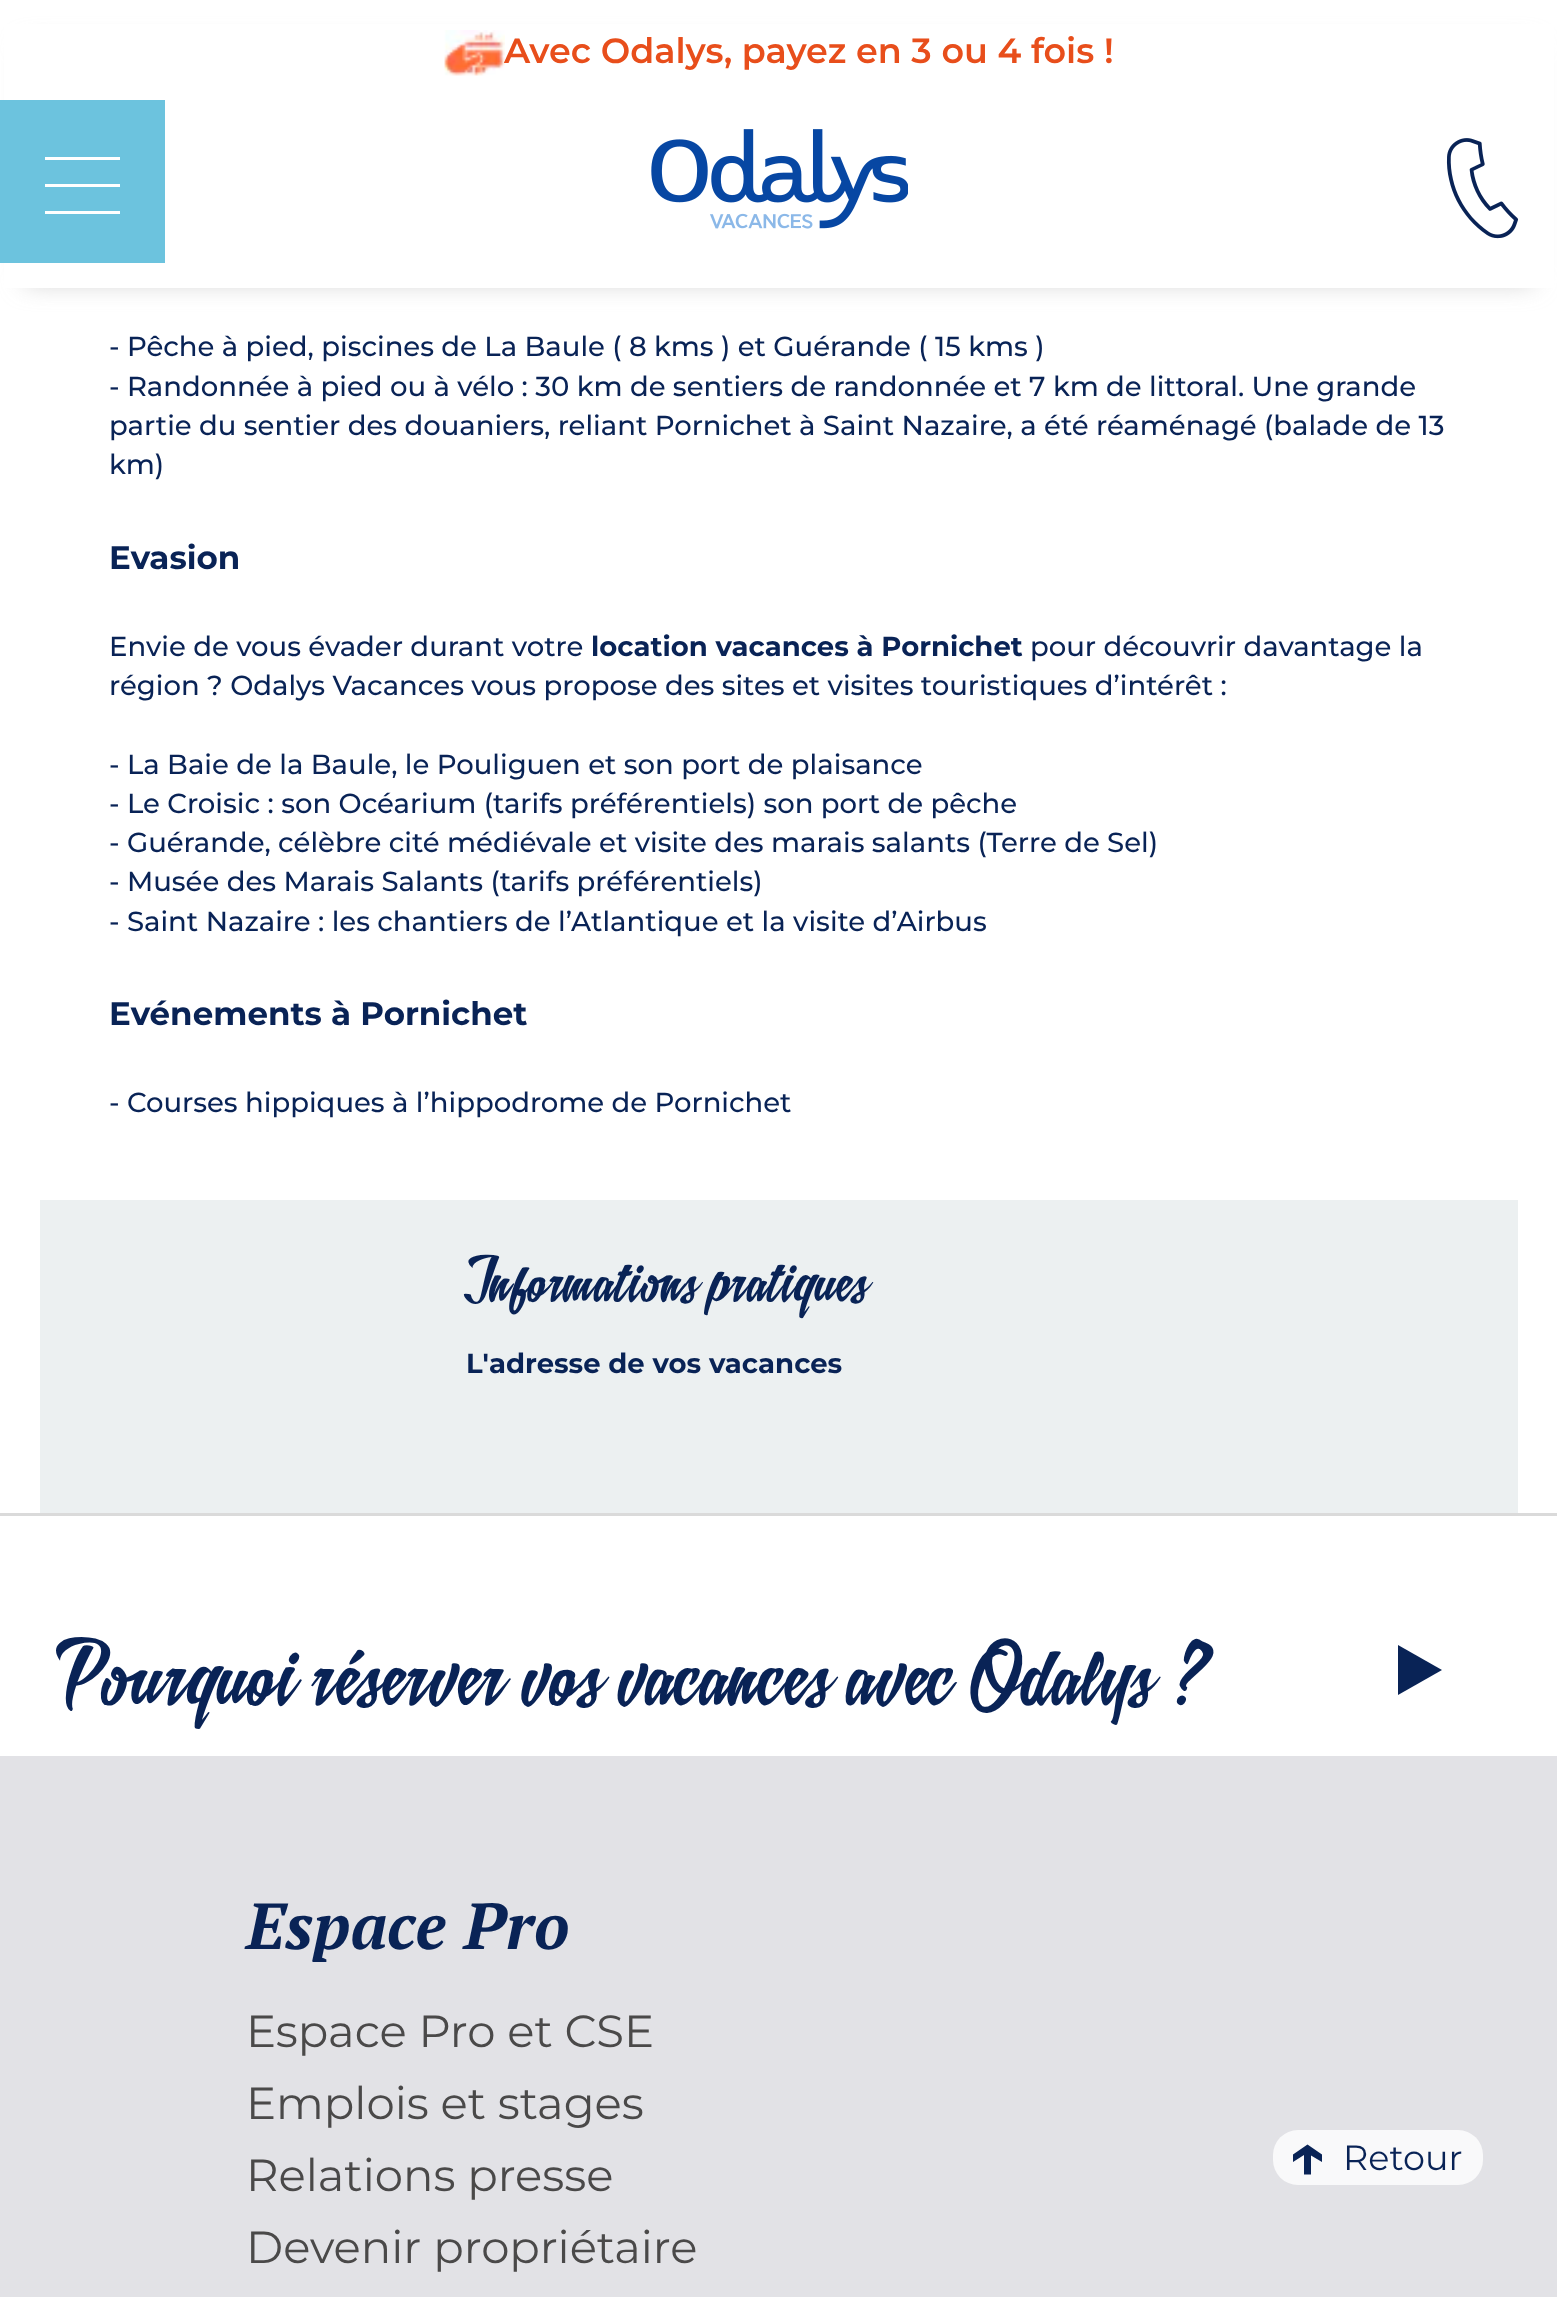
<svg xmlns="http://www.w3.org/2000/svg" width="1557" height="2297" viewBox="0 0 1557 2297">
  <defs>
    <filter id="blur1" x="-50%" y="-200%" width="200%" height="500%"><feGaussianBlur stdDeviation="12.5"/></filter>
  </defs>
  <rect width="100%" height="100%" fill="#ffffff"/>
  <rect x="25" y="45" width="1508" height="238" fill="#cccccc" filter="url(#blur1)"/>
  <rect x="4" y="24" width="1550" height="264" fill="#ffffff"/>
  <image x="444" y="30" width="61" height="46" href="img1.png"/>
  <text x="504" y="63" font-family="Montserrat" font-size="35" font-weight="600" fill="#e84e1b">Avec Odalys, payez en 3 ou 4 fois !</text>
  <rect x="0" y="100" width="165" height="163" fill="#6cc3de"/>
  <path d="M45 157H120V160H45ZM45 184H120V187H45ZM45 211H120V214H45Z" fill="#ffffff"/>
  <image x="651" y="129" width="257" height="100" href="img2.png"/>
  <image x="1446" y="138" width="73" height="101" href="img3.png"/>
  <rect x="0" y="1513" width="1557" height="3" fill="#dadada"/>
  <text x="109" y="356" font-family="Montserrat" font-size="27.5" font-weight="500" fill="#092356">- Pêche à pied, piscines de La Baule ( 8 kms ) et Guérande ( 15 kms )</text>
  <text x="109" y="396" font-family="Montserrat" font-size="27.5" font-weight="500" fill="#092356">- Randonnée à pied ou à vélo : 30 km de sentiers de randonnée et 7 km de littoral. Une grande</text>
  <text x="109" y="435" font-family="Montserrat" font-size="27.5" font-weight="500" fill="#092356">partie du sentier des douaniers, reliant Pornichet à Saint Nazaire, a été réaménagé (balade de 13</text>
  <text x="109" y="474" font-family="Montserrat" font-size="27.5" font-weight="500" fill="#092356">km)</text>
  <text x="109" y="569" font-family="Montserrat" font-size="32.5" font-weight="bold" fill="#092356">Evasion</text>
  <text x="109" y="656" font-family="Montserrat" font-size="27.5" font-weight="500" fill="#092356">Envie de vous évader durant votre</text>
  <text x="591" y="656" font-family="Montserrat" font-size="27.5" font-weight="bold" fill="#092356">location vacances à Pornichet</text>
  <text x="1030" y="656" font-family="Montserrat" font-size="27.5" font-weight="500" fill="#092356">pour découvrir davantage la</text>
  <text x="109" y="695" font-family="Montserrat" font-size="27.5" font-weight="500" fill="#092356">région ? Odalys Vacances vous propose des sites et visites touristiques d’intérêt :</text>
  <text x="109" y="774" font-family="Montserrat" font-size="27.5" font-weight="500" fill="#092356">- La Baie de la Baule, le Pouliguen et son port de plaisance</text>
  <text x="109" y="813" font-family="Montserrat" font-size="27.5" font-weight="500" fill="#092356">- Le Croisic : son Océarium (tarifs préférentiels) son port de pêche</text>
  <text x="109" y="852" font-family="Montserrat" font-size="27.5" font-weight="500" fill="#092356">- Guérande, célèbre cité médiévale et visite des marais salants (Terre de Sel)</text>
  <text x="109" y="891" font-family="Montserrat" font-size="27.5" font-weight="500" fill="#092356">- Musée des Marais Salants (tarifs préférentiels)</text>
  <text x="109" y="931" font-family="Montserrat" font-size="27.5" font-weight="500" fill="#092356">- Saint Nazaire : les chantiers de l’Atlantique et la visite d’Airbus</text>
  <text x="109" y="1025" font-family="Montserrat" font-size="32.5" font-weight="bold" fill="#092356">Evénements à Pornichet</text>
  <text x="109" y="1112" font-family="Montserrat" font-size="27.5" font-weight="500" fill="#092356">- Courses hippiques à l’hippodrome de Pornichet</text>
  <rect x="40" y="1200" width="1478" height="313" fill="#ecf0f1"/>
  <text x="466" y="1296" font-family="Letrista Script" font-size="45" fill="#092356">Informations pratiques</text>
  <text x="466" y="1373" font-family="Montserrat" font-size="27.5" font-weight="bold" fill="#092356">L'adresse de vos vacances</text>
  <text x="63" y="1697" font-family="Letrista Script" font-size="65" fill="#092356">Pourquoi réserver vos vacances avec Odalys ?</text>
  <path d="M1442 1670L1398 1645V1695Z" fill="#092356"/>
  <rect x="0" y="1756" width="1557" height="541" fill="#e2e2e6"/>
  <text x="246" y="1949" font-family="PT Serif" font-size="65" font-weight="bold" font-style="italic" fill="#092356">Espace Pro</text>
  <text x="246" y="2047" font-family="Montserrat" font-size="45" fill="#4a4949">Espace Pro et CSE</text>
  <text x="246" y="2119" font-family="Montserrat" font-size="45" fill="#4a4949">Emplois et stages</text>
  <text x="246" y="2191" font-family="Montserrat" font-size="45" fill="#4a4949">Relations presse</text>
  <text x="246" y="2263" font-family="Montserrat" font-size="45" fill="#4a4949">Devenir propriétaire</text>
  <rect x="1273" y="2130" width="210" height="55" rx="25" fill="#f9f9fa"/>
  <path d="M1322 2154.5V2162L1311 2155.5V2174.5H1304V2155L1293 2162V2154.5L1307.5 2144.5Z" fill="#092356"/>
  <text x="1343" y="2170" font-family="Montserrat" font-size="35" fill="#092356">Retour</text>
</svg>
